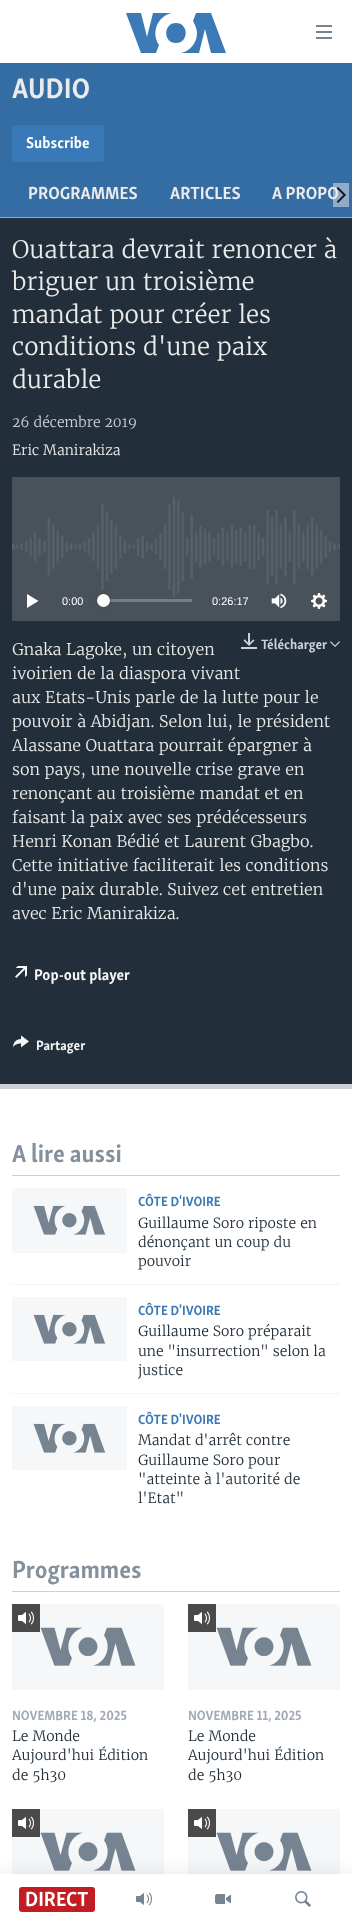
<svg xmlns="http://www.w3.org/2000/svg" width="352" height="1924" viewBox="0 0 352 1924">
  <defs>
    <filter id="blur1" x="-50%" y="-200%" width="200%" height="500%"><feGaussianBlur stdDeviation="1.5"/></filter>
    <filter id="blur2" x="-50%" y="-200%" width="200%" height="500%"><feGaussianBlur stdDeviation="10"/></filter>
  </defs>
  <rect width="100%" height="100%" fill="#ffffff"/>
  <rect x="0" y="63" width="352" height="154" fill="#346ca4"/>
  <text x="12" y="98" font-family="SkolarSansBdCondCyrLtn" font-size="29" font-weight="bold" fill="#ebebeb">AUDIO</text>
  <rect x="12" y="125" width="92" height="37" rx="3" fill="#3a79b7"/>
  <text x="26" y="148" font-family="SkolarSansBdCondCyrLtn" font-size="16" font-weight="bold" fill="#ffffff">Subscribe</text>
  <text x="28" y="199" font-family="SkolarSansBdCondCyrLtn" font-size="18" font-weight="bold" fill="#ebebeb">PROGRAMMES</text>
  <text x="170" y="199" font-family="SkolarSansBdCondCyrLtn" font-size="18" font-weight="bold" fill="#ebebeb">ARTICLES</text>
  <text x="272" y="199" font-family="SkolarSansBdCondCyrLtn" font-size="18" font-weight="bold" fill="#ebebeb">A PROPO</text>
  <rect x="333" y="183" width="16" height="24" fill="#ebebeb" fill-opacity="0.5"/>
  <image x="336" y="187" width="10" height="16" href="img1.png"/>
  <rect x="0" y="218" width="352" height="866" fill="#222f3a"/>
  <rect x="0" y="217" width="352" height="1" fill="#a1aab4"/>
  <rect x="0" y="1084" width="352" height="5" fill="#cbd1d6"/>
  <text x="12" y="258" font-family="Merriweather" font-size="24" font-weight="300" fill="#ebebeb">Ouattara devrait renoncer à</text>
  <text x="12" y="290" font-family="Merriweather" font-size="24" font-weight="300" fill="#ebebeb">briguer un troisième</text>
  <text x="12" y="323" font-family="Merriweather" font-size="24" font-weight="300" fill="#ebebeb">mandat pour créer les</text>
  <text x="12" y="355" font-family="Merriweather" font-size="24" font-weight="300" fill="#ebebeb">conditions d'une paix</text>
  <text x="12" y="388" font-family="Merriweather" font-size="24" font-weight="300" fill="#ebebeb">durable</text>
  <text x="12" y="427" font-family="Merriweather" font-size="14" font-weight="300" fill="#cbd1d6">26 décembre 2019</text>
  <text x="12" y="455" font-family="Merriweather" font-size="14" font-weight="300" fill="#ebebeb">Eric Manirakiza</text>
  <rect x="12" y="477" width="328" height="144" fill="#49525a"/>
  <image x="12" y="497" width="328" height="100" href="img2.png"/>
  <path d="M27 608L38.5 601L27 594Z" fill="#ffffff"/>
  <text x="62" y="605" font-family="Liberation Sans" font-size="11" fill="#ffffff">0:00</text>
  <rect x="103" y="599" width="89" height="3" fill="#777d83"/>
  <rect x="97" y="594" width="13" height="13" rx="6.5" fill="#414144" filter="url(#blur1)"/>
  <circle cx="103.5" cy="600.5" r="6.5" fill="#ffffff"/>
  <text x="212" y="605" font-family="Liberation Sans" font-size="11" fill="#ffffff">0:26:17</text>
  <image x="271" y="593" width="16" height="16" href="img3.png"/>
  <image x="311" y="593" width="16" height="16" href="img4.png"/>
  <image x="241" y="633" width="16" height="16" href="img5.png"/>
  <text x="261" y="649" font-family="SkolarSansBdCondCyrLtn" font-size="14" font-weight="bold" fill="#cbd1d6">Télécharger</text>
  <image x="330" y="641" width="10" height="6" href="img6.png"/>
  <text x="12" y="655" font-family="Merriweather" font-size="16" font-weight="300" fill="#ebebeb">Gnaka Lagoke, un citoyen</text>
  <text x="12" y="679" font-family="Merriweather" font-size="16" font-weight="300" fill="#ebebeb">ivoirien de la diaspora vivant</text>
  <text x="12" y="703" font-family="Merriweather" font-size="16" font-weight="300" fill="#ebebeb">aux Etats-Unis parle de la lutte pour le</text>
  <text x="12" y="727" font-family="Merriweather" font-size="16" font-weight="300" fill="#ebebeb">pouvoir à Abidjan. Selon lui, le président</text>
  <text x="12" y="751" font-family="Merriweather" font-size="16" font-weight="300" fill="#ebebeb">Alassane Ouattara pourrait épargner à</text>
  <text x="12" y="775" font-family="Merriweather" font-size="16" font-weight="300" fill="#ebebeb">son pays, une nouvelle crise grave en</text>
  <text x="12" y="799" font-family="Merriweather" font-size="16" font-weight="300" fill="#ebebeb">renonçant au troisième mandat et en</text>
  <text x="12" y="823" font-family="Merriweather" font-size="16" font-weight="300" fill="#ebebeb">faisant la paix avec ses prédécesseurs</text>
  <text x="12" y="847" font-family="Merriweather" font-size="16" font-weight="300" fill="#ebebeb">Henri Konan Bédié et Laurent Gbagbo.</text>
  <text x="12" y="871" font-family="Merriweather" font-size="16" font-weight="300" fill="#ebebeb">Cette initiative faciliterait les conditions</text>
  <text x="12" y="895" font-family="Merriweather" font-size="16" font-weight="300" fill="#ebebeb">d'une paix durable. Suivez cet entretien</text>
  <text x="12" y="919" font-family="Merriweather" font-size="16" font-weight="300" fill="#ebebeb">avec Eric Manirakiza.</text>
  <image x="15" y="966" width="12" height="12" href="img7.png"/>
  <text x="34" y="980" font-family="SkolarSansBdCondCyrLtn" font-size="16" font-weight="bold" fill="#f6f7f8">Pop-out player</text>
  <image x="13" y="1035" width="16" height="13" href="img8.png"/>
  <text x="36" y="1050" font-family="SkolarSansBdCondCyrLtn" font-size="14" font-weight="bold" fill="#f6f7f8">Partager</text>
  <rect x="12" y="1175" width="328" height="1" fill="#cbd1d6"/>
  <text x="12" y="1162" font-family="SkolarSansBdCondCyrLtn" font-size="25.25" font-weight="bold" fill="#84919d">A lire aussi</text>
  <rect x="12" y="1188" width="115" height="65" fill="#f6f7f8"/>
  <image x="33" y="1205" width="73" height="30" href="img9.png"/>
  <text x="138" y="1206" font-family="SkolarSansBdCondCyrLtn" font-size="13.75" font-weight="bold" fill="#3a79b7">CÔTE D'IVOIRE</text>
  <text x="138" y="1228" font-family="Merriweather" font-size="14" font-weight="300" fill="#222f3a">Guillaume Soro riposte en</text>
  <text x="138" y="1247" font-family="Merriweather" font-size="14" font-weight="300" fill="#222f3a">dénonçant un coup du</text>
  <text x="138" y="1266" font-family="Merriweather" font-size="14" font-weight="300" fill="#222f3a">pouvoir</text>
  <path d="M12 1284.5H340" fill="none" stroke="#e8eaec" stroke-dasharray="1 1"/>
  <rect x="12" y="1297" width="115" height="64" fill="#f6f7f8"/>
  <image x="33" y="1314" width="73" height="30" href="img9.png"/>
  <text x="138" y="1315" font-family="SkolarSansBdCondCyrLtn" font-size="13.75" font-weight="bold" fill="#3a79b7">CÔTE D'IVOIRE</text>
  <text x="138" y="1336" font-family="Merriweather" font-size="14" font-weight="300" fill="#222f3a">Guillaume Soro préparait</text>
  <text x="138" y="1356" font-family="Merriweather" font-size="14" font-weight="300" fill="#222f3a">une "insurrection" selon la</text>
  <text x="138" y="1375" font-family="Merriweather" font-size="14" font-weight="300" fill="#222f3a">justice</text>
  <path d="M12 1393.5H340" fill="none" stroke="#e8eaec" stroke-dasharray="1 1"/>
  <rect x="12" y="1406" width="115" height="64" fill="#f6f7f8"/>
  <image x="33" y="1423" width="73" height="30" href="img9.png"/>
  <text x="138" y="1424" font-family="SkolarSansBdCondCyrLtn" font-size="13.75" font-weight="bold" fill="#3a79b7">CÔTE D'IVOIRE</text>
  <text x="138" y="1445" font-family="Merriweather" font-size="14" font-weight="300" fill="#222f3a">Mandat d'arrêt contre</text>
  <text x="138" y="1465" font-family="Merriweather" font-size="14" font-weight="300" fill="#222f3a">Guillaume Soro pour</text>
  <text x="138" y="1484" font-family="Merriweather" font-size="14" font-weight="300" fill="#222f3a">"atteinte à l'autorité de</text>
  <text x="138" y="1503" font-family="Merriweather" font-size="14" font-weight="300" fill="#222f3a">l'Etat"</text>
  <rect x="12" y="1591" width="328" height="1" fill="#cbd1d6"/>
  <text x="12" y="1578" font-family="SkolarSansBdCondCyrLtn" font-size="25.25" font-weight="bold" fill="#84919d">Programmes</text>
  <rect x="12" y="1604" width="152" height="86" fill="#f6f7f8"/>
  <image x="40" y="1627" width="96" height="39" href="img10.png"/>
  <rect x="12" y="1604" width="28" height="28" fill="#4a4a4a"/>
  <image x="18" y="1611" width="16" height="14" href="img11.png"/>
  <text x="12" y="1720" font-family="SkolarSansBdCondCyrLtn" font-size="13.75" font-weight="bold" fill="#a1aab4">NOVEMBRE 18, 2025</text>
  <text x="12" y="1741" font-family="Merriweather" font-size="14" font-weight="300" fill="#222f3a">Le Monde</text>
  <text x="12" y="1760" font-family="Merriweather" font-size="14" font-weight="300" fill="#222f3a">Aujourd'hui Édition</text>
  <text x="12" y="1780" font-family="Merriweather" font-size="14" font-weight="300" fill="#222f3a">de 5h30</text>
  <rect x="188" y="1604" width="152" height="86" fill="#f6f7f8"/>
  <image x="216" y="1627" width="96" height="39" href="img10.png"/>
  <rect x="188" y="1604" width="28" height="28" fill="#4a4a4a"/>
  <image x="194" y="1611" width="16" height="14" href="img11.png"/>
  <text x="188" y="1720" font-family="SkolarSansBdCondCyrLtn" font-size="13.75" font-weight="bold" fill="#a1aab4">NOVEMBRE 11, 2025</text>
  <text x="188" y="1741" font-family="Merriweather" font-size="14" font-weight="300" fill="#222f3a">Le Monde</text>
  <text x="188" y="1760" font-family="Merriweather" font-size="14" font-weight="300" fill="#222f3a">Aujourd'hui Édition</text>
  <text x="188" y="1780" font-family="Merriweather" font-size="14" font-weight="300" fill="#222f3a">de 5h30</text>
  <rect x="12" y="1809" width="152" height="65" fill="#f6f7f8"/>
  <image x="40" y="1832" width="96" height="39" href="img10.png"/>
  <rect x="12" y="1809" width="28" height="28" fill="#4a4a4a"/>
  <image x="18" y="1816" width="16" height="14" href="img11.png"/>
  <rect x="188" y="1809" width="152" height="65" fill="#f6f7f8"/>
  <image x="216" y="1832" width="96" height="39" href="img10.png"/>
  <rect x="188" y="1809" width="28" height="28" fill="#4a4a4a"/>
  <image x="194" y="1816" width="16" height="14" href="img11.png"/>
  <path d="M159 45L156 53H141L126 13H141L147 37L153 13H171C157 17 151 33 159 45ZM176 23C163 23 163 43 176 43C189 43 189 23 176 23ZM197 33C197 43 190 51 181 53H199L205 29L211 53H226L211 13H196L193 21C195 25 197 29 197 33Z" fill="#3b79b7"/>
  <image x="316" y="25" width="16" height="14" href="img12.png"/>
  <rect x="0" y="1874" width="352" height="50" fill="#000000" fill-opacity="0.1" filter="url(#blur2)"/>
  <rect x="0" y="1874" width="352" height="50" fill="#ffffff"/>
  <rect x="19" y="1887" width="76" height="25" rx="3" fill="#c11d22"/>
  <text x="25" y="1906" font-family="SkolarSansBdCondCyrLtn" font-size="21" font-weight="bold" fill="#ffffff">DIRECT</text>
  <image x="136" y="1892" width="16" height="14" href="img13.png"/>
  <image x="215" y="1894" width="16" height="10" href="img14.png"/>
  <image x="295" y="1891" width="16" height="16" href="img15.png"/>
</svg>
